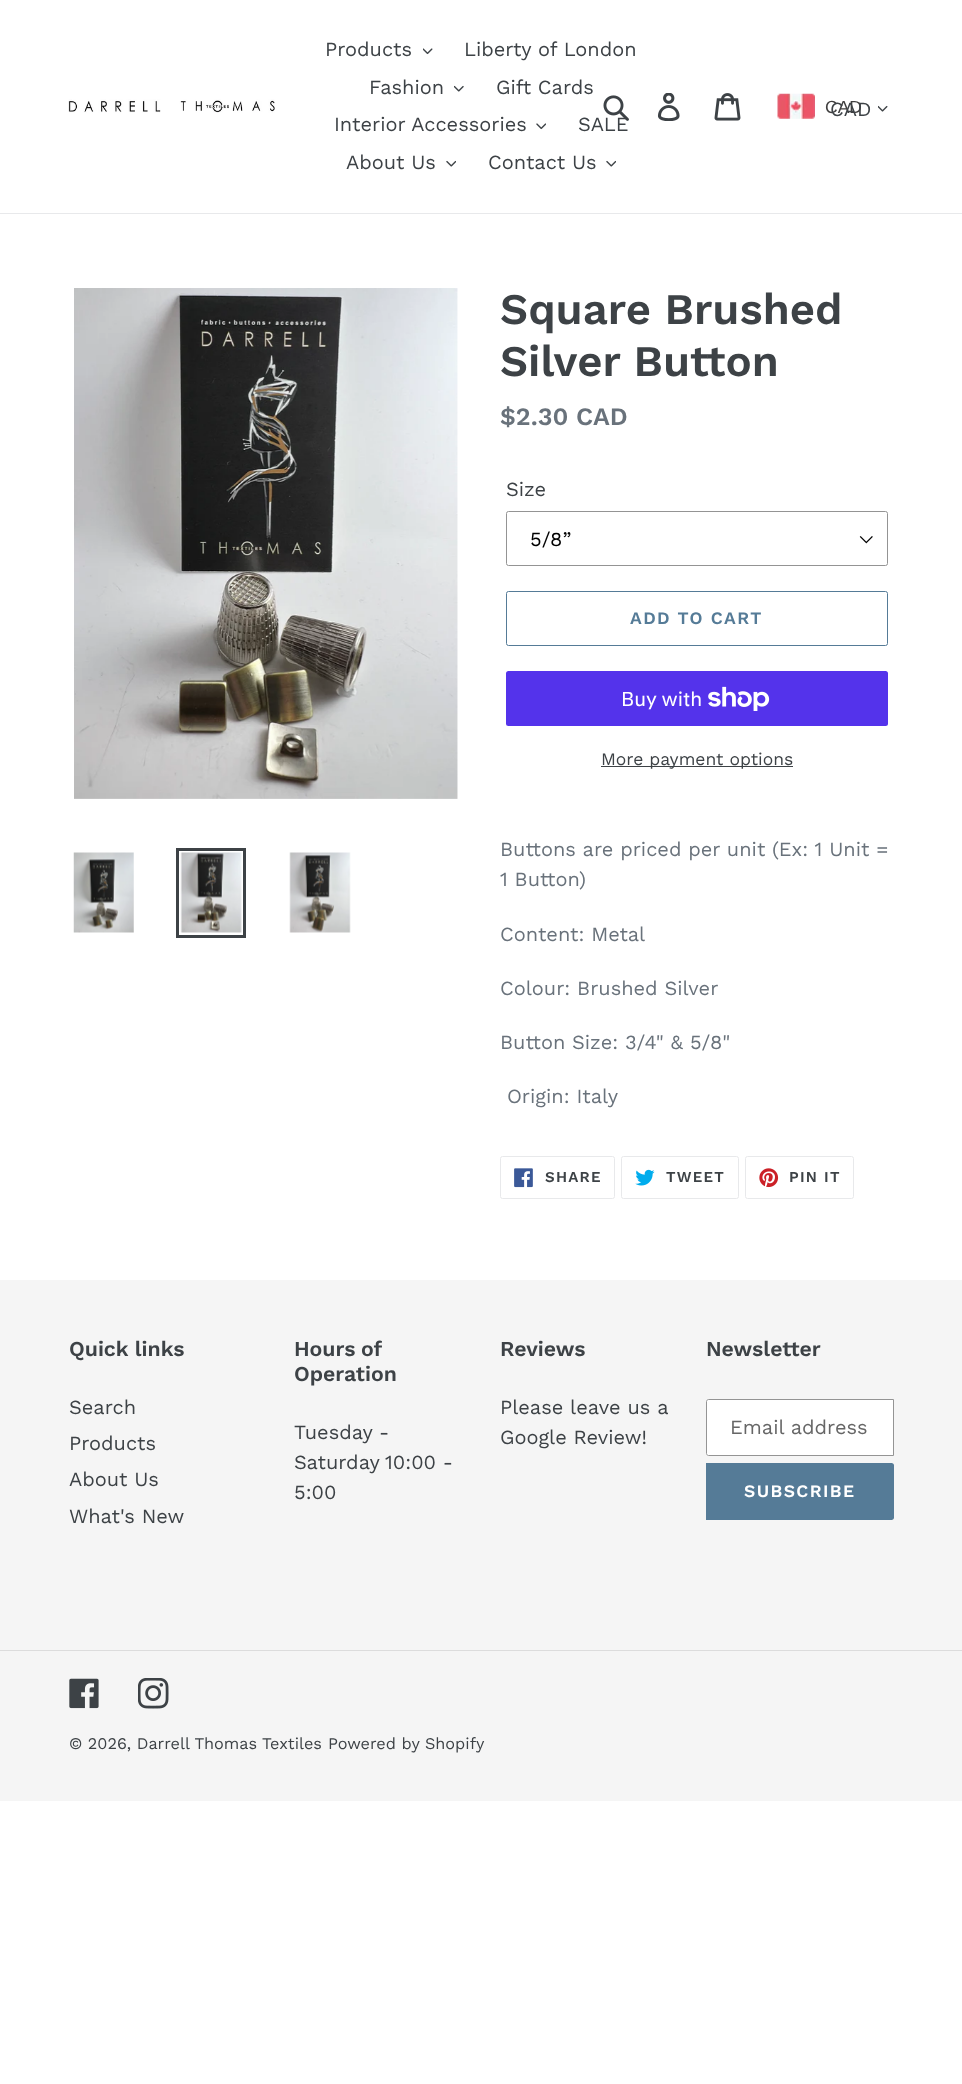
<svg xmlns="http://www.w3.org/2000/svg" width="962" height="2084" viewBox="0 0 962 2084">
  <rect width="100%" height="100%" fill="#ffffff"/>
  <rect x="0" y="213" width="962" height="1" fill="#e8e9eb"/>
  <image x="68" y="99" width="207" height="14" href="img1.png"/>
  <text x="325" y="56" font-family="Work Sans" font-size="20" fill="#3d4246">Products</text>
  <image x="423" y="48" width="10" height="7" href="img2.png"/>
  <text x="464" y="56" font-family="Work Sans" font-size="20" fill="#3d4246">Liberty of London</text>
  <text x="369" y="94" font-family="Work Sans" font-size="20" fill="#3d4246">Fashion</text>
  <image x="454" y="85" width="10" height="7" href="img3.png"/>
  <text x="496" y="94" font-family="Work Sans" font-size="20" fill="#3d4246">Gift Cards</text>
  <text x="334" y="131" font-family="Work Sans" font-size="20" fill="#3d4246">Interior Accessories</text>
  <image x="536" y="123" width="10" height="7" href="img4.png"/>
  <text x="578" y="131" font-family="Work Sans" font-size="20" fill="#3d4246">SALE</text>
  <text x="346" y="169" font-family="Work Sans" font-size="20" fill="#3d4246">About Us</text>
  <image x="446" y="160" width="10" height="7" href="img5.png"/>
  <text x="488" y="169" font-family="Work Sans" font-size="20" fill="#3d4246">Contact Us</text>
  <image x="606" y="160" width="10" height="7" href="img5.png"/>
  <image x="603" y="95" width="26" height="26" href="img6.png"/>
  <image x="657" y="93" width="23" height="28" href="img7.png"/>
  <image x="714" y="93" width="27" height="28" href="img8.png"/>
  <image x="777" y="93" width="38" height="26" href="img9.png"/>
  <text x="825" y="113" font-family="Liberation Sans" font-size="17.5" fill="#403f3f">CAD</text>
  <text x="830" y="116" font-family="Work Sans" font-size="20" fill="#3d4246">CAD</text>
  <image x="878" y="105" width="10" height="7" href="img10.png"/>
  <image x="74" y="288" width="384" height="511" href="img11.png"/>
  <image x="73" y="852" width="61" height="81" href="img12.png"/>
  <rect x="177.5" y="849.5" width="67" height="87" fill="none" stroke="#3d4246" stroke-width="3"/>
  <image x="180" y="852" width="62" height="81" href="img13.png"/>
  <image x="289" y="852" width="62" height="81" href="img14.png"/>
  <text x="500" y="324" font-family="Work Sans" font-size="43.75" font-weight="600" fill="#3d4246">Square Brushed</text>
  <text x="500" y="376" font-family="Work Sans" font-size="43.75" font-weight="600" fill="#3d4246">Silver Button</text>
  <text x="500" y="425" font-family="Work Sans" font-size="25" font-weight="600" fill="#69727b">$2.30 CAD</text>
  <text x="506" y="496" font-family="Work Sans" font-size="20" fill="#3d4246">Size</text>
  <image x="859" y="536" width="14" height="8" href="img15.png"/>
  <rect x="506.5" y="511.5" width="381" height="54" rx="2" fill="none" stroke="#949494"/>
  <text x="530" y="546" font-family="Work Sans" font-size="20" fill="#000000">5/8”</text>
  <rect x="506.5" y="591.5" width="381" height="54" rx="2" fill="none" stroke="#557b97"/>
  <text x="630" y="624" font-family="Work Sans" font-size="17.5" font-weight="600" letter-spacing="1.4" fill="#557b97">ADD TO CART</text>
  <rect x="506" y="671" width="382" height="55" rx="2.5" fill="#5433eb"/>
  <text x="621" y="706" font-family="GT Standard" font-size="20" fill="#ffffff">Buy with</text>
  <image x="708" y="686" width="62" height="25" href="img16.png"/>
  <rect x="601" y="766" width="192" height="1" fill="#3d4246"/>
  <text x="601" y="765" font-family="Work Sans" font-size="17.5" fill="#3d4246">More payment options</text>
  <text x="500" y="856" font-family="Work Sans" font-size="20" fill="#69727b">Buttons are priced per unit (Ex: 1 Unit =</text>
  <text x="500" y="886" font-family="Work Sans" font-size="20" fill="#69727b">1 Button)</text>
  <text x="500" y="941" font-family="Work Sans" font-size="20" fill="#69727b">Content: Metal</text>
  <text x="500" y="995" font-family="Work Sans" font-size="20" fill="#69727b">Colour: Brushed Silver</text>
  <text x="500" y="1049" font-family="Work Sans" font-size="20" fill="#69727b">Button Size: 3/4" &amp; 5/8"</text>
  <text x="507" y="1103" font-family="Work Sans" font-size="20" fill="#69727b">Origin: Italy</text>
  <rect x="500.5" y="1156.5" width="114" height="42" rx="2" fill="none" stroke="#e8e9eb"/>
  <image x="514" y="1168" width="19" height="20" href="img17.png"/>
  <text x="545" y="1182" font-family="Work Sans" font-size="15" font-weight="600" letter-spacing="1.25" fill="#3d4246">SHARE</text>
  <rect x="621.5" y="1156.5" width="117" height="42" rx="2" fill="none" stroke="#e8e9eb"/>
  <image x="635" y="1169" width="20" height="17" href="img18.png"/>
  <text x="666" y="1182" font-family="Work Sans" font-size="15" font-weight="600" letter-spacing="1.25" fill="#3d4246">TWEET</text>
  <rect x="745.5" y="1156.5" width="108" height="42" rx="2" fill="none" stroke="#e8e9eb"/>
  <image x="759" y="1168" width="20" height="20" href="img19.png"/>
  <text x="789" y="1182" font-family="Work Sans" font-size="15" font-weight="600" letter-spacing="1.25" fill="#3d4246">PIN IT</text>
  <rect x="0" y="1280" width="962" height="521" fill="#f5f5f5"/>
  <text x="69" y="1356" font-family="Work Sans" font-size="21.25" font-weight="600" fill="#3d4246">Quick links</text>
  <text x="69" y="1414" font-family="Work Sans" font-size="20" fill="#3d4246">Search</text>
  <text x="69" y="1450" font-family="Work Sans" font-size="20" fill="#3d4246">Products</text>
  <text x="69" y="1486" font-family="Work Sans" font-size="20" fill="#3d4246">About Us</text>
  <text x="69" y="1523" font-family="Work Sans" font-size="20" fill="#3d4246">What's New</text>
  <text x="294" y="1356" word-spacing="-1" font-family="Work Sans" font-size="21.25" font-weight="600" fill="#3d4246">Hours of</text>
  <text x="294" y="1381" font-family="Work Sans" font-size="21.25" font-weight="600" fill="#3d4246">Operation</text>
  <text x="294" y="1439" font-family="Work Sans" font-size="20" fill="#3d4246">Tuesday -</text>
  <text x="294" y="1469" font-family="Work Sans" font-size="20" fill="#3d4246">Saturday</text>
  <text x="385" y="1469" font-family="Work Sans" font-size="20" fill="#3d4246">10:00 -</text>
  <text x="294" y="1499" font-family="Work Sans" font-size="20" fill="#3d4246">5:00</text>
  <text x="500" y="1356" font-family="Work Sans" font-size="21.25" font-weight="600" fill="#3d4246">Reviews</text>
  <text x="500" y="1414" font-family="Work Sans" font-size="20" fill="#3d4246">Please leave us a</text>
  <text x="500" y="1444" font-family="Work Sans" font-size="20" fill="#3d4246">Google Review!</text>
  <text x="706" y="1356" font-family="Work Sans" font-size="21.25" font-weight="600" fill="#3d4246">Newsletter</text>
  <path d="M708.5 1399.5H893.5V1455.5H708.5C707.5 1455.5 706.5 1454.5 706.5 1453.5V1401.5C706.5 1400.5 707.5 1399.5 708.5 1399.5Z" fill="#ffffff" stroke="#949494"/>
  <text x="730" y="1434" font-family="Work Sans" font-size="20" fill="#666666">Email address</text>
  <path d="M706 1463H891.5C893 1463 894 1464 894 1465.5V1517.5C894 1519 893 1520 891.5 1520H706Z" fill="#557b97"/>
  <text x="744" y="1497" font-family="Work Sans" font-size="17.5" font-weight="600" letter-spacing="1.4" fill="#ffffff">SUBSCRIBE</text>
  <rect x="0" y="1650" width="962" height="1" fill="#dcdcdc"/>
  <image x="69" y="1678" width="30" height="31" href="img20.png"/>
  <image x="138" y="1678" width="31" height="31" href="img21.png"/>
  <text x="69" y="1749" font-family="Work Sans" font-size="16.25" fill="#3d4246">© 2026, Darrell Thomas Textiles</text>
  <text x="328" y="1749" font-family="Work Sans" font-size="16.25" fill="#3d4246">Powered by Shopify</text>
</svg>
